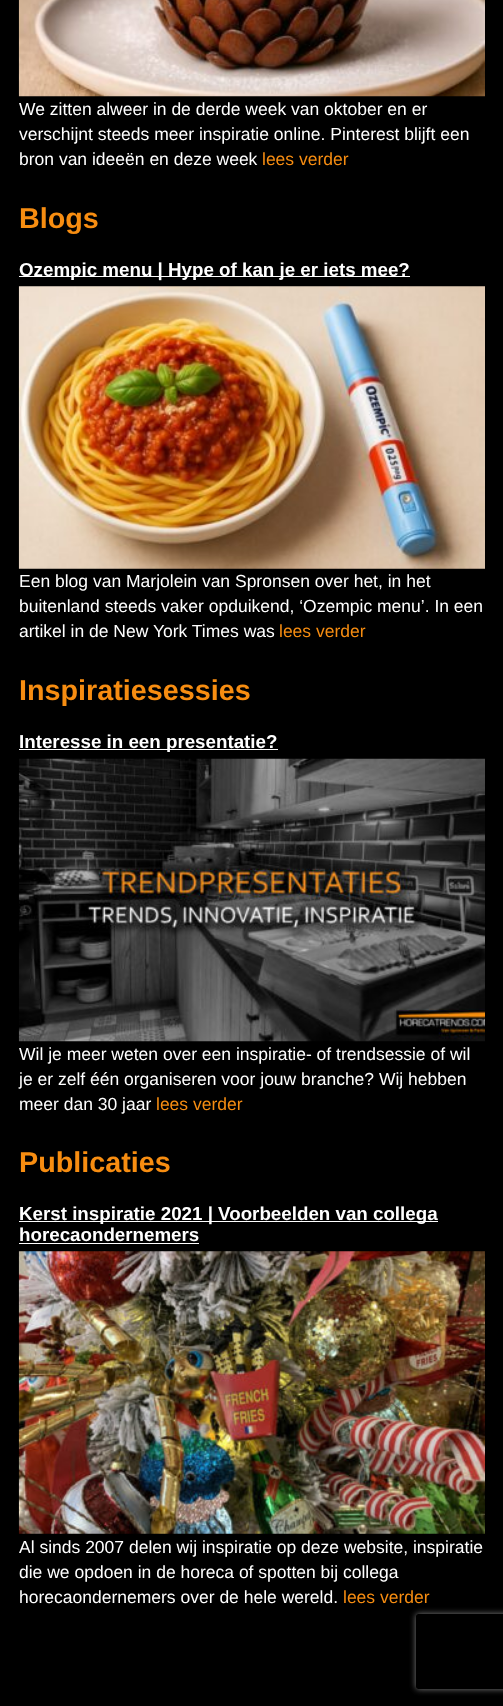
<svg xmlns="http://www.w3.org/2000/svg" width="503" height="1706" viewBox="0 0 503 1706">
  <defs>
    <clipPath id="clip1"><path d="M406 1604H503V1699H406ZM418.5 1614H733.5C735 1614 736 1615 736 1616.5V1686.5C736 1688 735 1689 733.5 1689H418.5C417 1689 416 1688 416 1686.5V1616.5C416 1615 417 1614 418.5 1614Z" clip-rule="evenodd"/></clipPath>
    <filter id="blur1" x="-50%" y="-200%" width="200%" height="500%"><feGaussianBlur stdDeviation="3"/></filter>
  </defs>
  <rect width="100%" height="100%" fill="#000000"/>
  <image x="18" y="0" width="467" height="97" href="img1.png"/>
  <text x="19" y="115" font-family="Liberation Sans" font-size="17.5" fill="#ffffff">We zitten alweer in de derde week van oktober en er</text>
  <text x="19" y="140" font-family="Liberation Sans" font-size="17.5" fill="#ffffff">verschijnt steeds meer inspiratie online. Pinterest blijft een</text>
  <text x="19" y="165" font-family="Liberation Sans" font-size="17.5" fill="#ffffff">bron van ideeën en deze week</text>
  <text x="262" y="165" font-family="Liberation Sans" font-size="17.5" fill="#f78d11">lees verder</text>
  <text x="19" y="228" font-family="Liberation Sans" font-size="28.75" font-weight="bold" fill="#f78d11">Blogs</text>
  <rect x="19" y="276" width="391" height="1" fill="#ffffff"/>
  <text x="19" y="276" font-family="Liberation Sans" font-size="18.75" font-weight="bold" fill="#ffffff">Ozempic menu | Hype of kan je er iets mee?</text>
  <image x="18" y="286" width="467" height="283" href="img2.png"/>
  <text x="19" y="587" font-family="Liberation Sans" font-size="17.5" fill="#ffffff">Een blog van Marjolein van Spronsen over het, in het</text>
  <text x="19" y="612" font-family="Liberation Sans" font-size="17.5" fill="#ffffff">buitenland steeds vaker opduikend, ‘Ozempic menu’. In een</text>
  <text x="19" y="637" font-family="Liberation Sans" font-size="17.5" fill="#ffffff">artikel in de New York Times was</text>
  <text x="279" y="637" font-family="Liberation Sans" font-size="17.5" fill="#f78d11">lees verder</text>
  <text x="19" y="700" font-family="Liberation Sans" font-size="28.75" font-weight="bold" fill="#f78d11">Inspiratiesessies</text>
  <rect x="19" y="749" width="259" height="1" fill="#ffffff"/>
  <text x="19" y="748" font-family="Liberation Sans" font-size="18.75" font-weight="bold" fill="#ffffff">Interesse in een presentatie?</text>
  <image x="18" y="758" width="467" height="284" href="img3.png"/>
  <text x="19" y="1060" font-family="Liberation Sans" font-size="17.5" fill="#ffffff">Wil je meer weten over een inspiratie- of trendsessie of wil</text>
  <text x="19" y="1085" font-family="Liberation Sans" font-size="17.5" fill="#ffffff">je er zelf één organiseren voor jouw branche? Wij hebben</text>
  <text x="19" y="1110" font-family="Liberation Sans" font-size="17.5" fill="#ffffff">meer dan 30 jaar</text>
  <text x="156" y="1110" font-family="Liberation Sans" font-size="17.5" fill="#f78d11">lees verder</text>
  <text x="19" y="1172" font-family="Liberation Sans" font-size="28.75" font-weight="bold" fill="#f78d11">Publicaties</text>
  <rect x="19" y="1221" width="419" height="1" fill="#ffffff"/>
  <text x="19" y="1220" font-family="Liberation Sans" font-size="18.75" font-weight="bold" fill="#ffffff">Kerst inspiratie 2021 | Voorbeelden van collega</text>
  <text x="19" y="1241" font-family="Liberation Sans" font-size="18.75" font-weight="bold" fill="#ffffff">horecaondernemers</text>
  <rect x="19" y="1243" width="180" height="1" fill="#ffffff"/>
  <image x="18" y="1251" width="467" height="283" href="img4.png"/>
  <text x="19" y="1553" font-family="Liberation Sans" font-size="17.5" fill="#ffffff">Al sinds 2007 delen wij inspiratie op deze website, inspiratie</text>
  <text x="19" y="1578" font-family="Liberation Sans" font-size="17.5" fill="#ffffff">die we opdoen in de horeca of spotten bij collega</text>
  <text x="19" y="1603" font-family="Liberation Sans" font-size="17.5" fill="#ffffff">horecaondernemers over de hele wereld.</text>
  <text x="343" y="1603" font-family="Liberation Sans" font-size="17.5" fill="#f78d11">lees verder</text>
  <g clip-path="url(#clip1)">
    <rect x="416" y="1614" width="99" height="75" rx="2.5" fill="#808080" filter="url(#blur1)"/>
  </g>
</svg>
